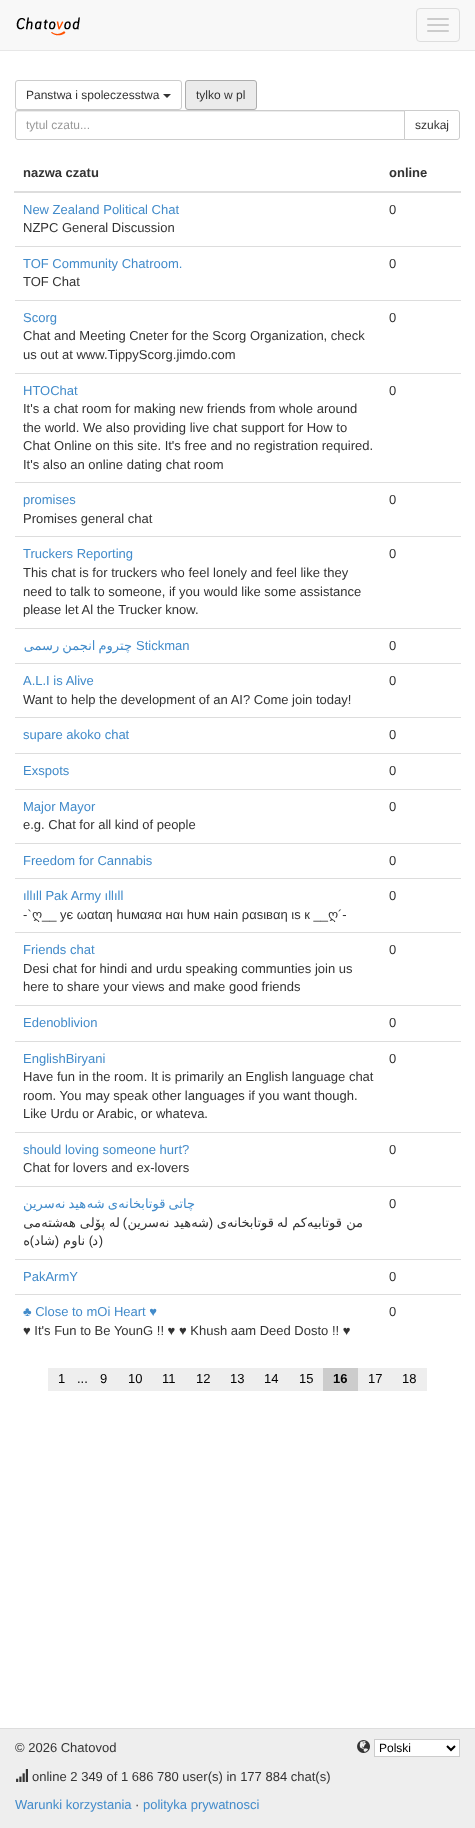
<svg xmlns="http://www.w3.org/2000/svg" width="475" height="1828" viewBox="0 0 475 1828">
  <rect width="100%" height="100%" fill="#ffffff"/>
  <rect x="0" y="0" width="475" height="50" fill="#f8f8f8"/>
  <rect x="0" y="50" width="475" height="1" fill="#e7e7e7"/>
  <image x="16" y="17" width="64" height="19" href="img1.png"/>
  <rect x="416.5" y="8.5" width="43" height="33" rx="3.5" fill="none" stroke="#dddddd"/>
  <rect x="427" y="18" width="22" height="2" rx="1" fill="#cccccc"/>
  <rect x="427" y="24" width="22" height="2" rx="1" fill="#cccccc"/>
  <rect x="427" y="30" width="22" height="2" rx="1" fill="#cccccc"/>
  <rect x="15.5" y="80.5" width="166" height="29" rx="2.5" fill="none" stroke="#cccccc"/>
  <text x="26" y="99" font-family="Liberation Sans" font-size="12" fill="#333333">Panstwa i spoleczesstwa</text>
  <path d="M163 94H171L167 98Z" fill="#333333"/>
  <rect x="185.5" y="80.5" width="71" height="29" rx="2.5" fill="#ebebeb" stroke="#adadad"/>
  <text x="196" y="99" font-family="Liberation Sans" font-size="12" fill="#333333">tylko w pl</text>
  <path d="M18 112H404V111H18C16 111 16 113 16 114C16 113 17 112 18 112Z" fill="#ececec"/>
  <path d="M18 110.5H404.5V139.5H18C16.5 139.5 15.5 138.5 15.5 137V113C15.5 111.5 16.5 110.5 18 110.5Z" fill="none" stroke="#cccccc"/>
  <text x="26" y="129" font-family="Liberation Sans" font-size="12" fill="#999999">tytul czatu...</text>
  <path d="M404.5 110.5H457C458.5 110.5 459.5 111.5 459.5 113V137C459.5 138.5 458.5 139.5 457 139.5H404.5Z" fill="#ffffff" stroke="#cccccc"/>
  <text x="415" y="129" font-family="Liberation Sans" font-size="12" fill="#333333">szukaj</text>
  <text x="23" y="177" font-family="Liberation Sans" font-size="13" font-weight="bold" fill="#333333">nazwa czatu</text>
  <rect x="14" y="191" width="447" height="2" fill="#dddddd"/>
  <text x="389" y="177" font-family="Liberation Sans" font-size="13" font-weight="bold" fill="#333333">online</text>
  <text x="23" y="214" font-family="Liberation Sans" font-size="13" fill="#428bca">New Zealand Political Chat</text>
  <text x="23" y="232" font-family="Liberation Sans" font-size="13" fill="#333333">NZPC General Discussion</text>
  <text x="389" y="214" font-family="Liberation Sans" font-size="13" fill="#333333">0</text>
  <text x="23" y="268" font-family="Liberation Sans" font-size="13" fill="#428bca">TOF Community Chatroom.</text>
  <text x="23" y="286" font-family="Liberation Sans" font-size="13" fill="#333333">TOF Chat</text>
  <rect x="15" y="246" width="446" height="1" fill="#dddddd"/>
  <text x="389" y="268" font-family="Liberation Sans" font-size="13" fill="#333333">0</text>
  <text x="23" y="322" font-family="Liberation Sans" font-size="13" fill="#428bca">Scorg</text>
  <text x="23" y="340" font-family="Liberation Sans" font-size="13" fill="#333333">Chat and Meeting Cneter for the Scorg Organization, check</text>
  <text x="23" y="359" font-family="Liberation Sans" font-size="13" fill="#333333">us out at www.TippyScorg.jimdo.com</text>
  <rect x="15" y="300" width="446" height="1" fill="#dddddd"/>
  <text x="389" y="322" font-family="Liberation Sans" font-size="13" fill="#333333">0</text>
  <text x="23" y="395" font-family="Liberation Sans" font-size="13" fill="#428bca">HTOChat</text>
  <text x="23" y="413" font-family="Liberation Sans" font-size="13" fill="#333333">It's a chat room for making new friends from whole around</text>
  <text x="23" y="432" font-family="Liberation Sans" font-size="13" fill="#333333">the world. We also providing live chat support for How to</text>
  <text x="23" y="450" font-family="Liberation Sans" font-size="13" fill="#333333">Chat Online on this site. It's free and no registration required.</text>
  <text x="23" y="469" font-family="Liberation Sans" font-size="13" fill="#333333">It's also an online dating chat room</text>
  <rect x="15" y="373" width="446" height="1" fill="#dddddd"/>
  <text x="389" y="395" font-family="Liberation Sans" font-size="13" fill="#333333">0</text>
  <text x="23" y="504" font-family="Liberation Sans" font-size="13" fill="#428bca">promises</text>
  <text x="23" y="523" font-family="Liberation Sans" font-size="13" fill="#333333">Promises general chat</text>
  <rect x="15" y="482" width="446" height="1" fill="#dddddd"/>
  <text x="389" y="504" font-family="Liberation Sans" font-size="13" fill="#333333">0</text>
  <text x="23" y="558" font-family="Liberation Sans" font-size="13" fill="#428bca">Truckers Reporting</text>
  <text x="23" y="577" font-family="Liberation Sans" font-size="13" fill="#333333">This chat is for truckers who feel lonely and feel like they</text>
  <text x="23" y="596" font-family="Liberation Sans" font-size="13" fill="#333333">need to talk to someone, if you would like some assistance</text>
  <text x="23" y="614" font-family="Liberation Sans" font-size="13" fill="#333333">please let Al the Trucker know.</text>
  <rect x="15" y="536" width="446" height="1" fill="#dddddd"/>
  <text x="389" y="558" font-family="Liberation Sans" font-size="13" fill="#333333">0</text>
  <text x="132" y="650" word-spacing="-1" font-family="DejaVu Sans" font-size="13" direction="rtl" fill="#428bca">چتروم انجمن رسمی</text>
  <text x="136" y="650" font-family="Liberation Sans" font-size="13" fill="#428bca">Stickman</text>
  <rect x="15" y="628" width="446" height="1" fill="#dddddd"/>
  <text x="389" y="650" font-family="Liberation Sans" font-size="13" fill="#333333">0</text>
  <text x="23" y="685" font-family="Liberation Sans" font-size="13" fill="#428bca">A.L.I is Alive</text>
  <text x="23" y="704" font-family="Liberation Sans" font-size="13" fill="#333333">Want to help the development of an AI? Come join today!</text>
  <rect x="15" y="663" width="446" height="1" fill="#dddddd"/>
  <text x="389" y="685" font-family="Liberation Sans" font-size="13" fill="#333333">0</text>
  <text x="23" y="739" font-family="Liberation Sans" font-size="13" fill="#428bca">supare akoko chat</text>
  <rect x="15" y="717" width="446" height="1" fill="#dddddd"/>
  <text x="389" y="739" font-family="Liberation Sans" font-size="13" fill="#333333">0</text>
  <text x="23" y="775" font-family="Liberation Sans" font-size="13" fill="#428bca">Exspots</text>
  <rect x="15" y="753" width="446" height="1" fill="#dddddd"/>
  <text x="389" y="775" font-family="Liberation Sans" font-size="13" fill="#333333">0</text>
  <text x="23" y="811" font-family="Liberation Sans" font-size="13" fill="#428bca">Major Mayor</text>
  <text x="23" y="829" font-family="Liberation Sans" font-size="13" fill="#333333">e.g. Chat for all kind of people</text>
  <rect x="15" y="789" width="446" height="1" fill="#dddddd"/>
  <text x="389" y="811" font-family="Liberation Sans" font-size="13" fill="#333333">0</text>
  <text x="23" y="865" font-family="Liberation Sans" font-size="13" fill="#428bca">Freedom for Cannabis</text>
  <rect x="15" y="843" width="446" height="1" fill="#dddddd"/>
  <text x="389" y="865" font-family="Liberation Sans" font-size="13" fill="#333333">0</text>
  <text x="23" y="900" font-family="Liberation Sans" font-size="13" fill="#428bca">ıllıll Pak Army ıllıll</text>
  <text x="23" y="919" font-family="Liberation Sans" font-size="13" fill="#333333">-`</text>
  <text x="32" y="919" font-family="DejaVu Sans" font-size="13" fill="#333333">ღ</text>
  <text x="42" y="919" font-family="Liberation Sans" font-size="13" fill="#333333">__ ує ωαtαη huмαяα нαι hυм нain ραѕιвαη ιѕ к __</text>
  <text x="328" y="919" font-family="DejaVu Sans" font-size="13" fill="#333333">ღ</text>
  <text x="338" y="919" font-family="Liberation Sans" font-size="13" fill="#333333">´-</text>
  <rect x="15" y="878" width="446" height="1" fill="#dddddd"/>
  <text x="389" y="900" font-family="Liberation Sans" font-size="13" fill="#333333">0</text>
  <text x="23" y="954" font-family="Liberation Sans" font-size="13" fill="#428bca">Friends chat</text>
  <text x="23" y="973" font-family="Liberation Sans" font-size="13" fill="#333333">Desi chat for hindi and urdu speaking communties join us</text>
  <text x="23" y="991" font-family="Liberation Sans" font-size="13" fill="#333333">here to share your views and make good friends</text>
  <rect x="15" y="932" width="446" height="1" fill="#dddddd"/>
  <text x="389" y="954" font-family="Liberation Sans" font-size="13" fill="#333333">0</text>
  <text x="23" y="1027" font-family="Liberation Sans" font-size="13" fill="#428bca">Edenoblivion</text>
  <rect x="15" y="1005" width="446" height="1" fill="#dddddd"/>
  <text x="389" y="1027" font-family="Liberation Sans" font-size="13" fill="#333333">0</text>
  <text x="23" y="1063" font-family="Liberation Sans" font-size="13" fill="#428bca">EnglishBiryani</text>
  <text x="23" y="1081" font-family="Liberation Sans" font-size="13" fill="#333333">Have fun in the room. It is primarily an English language chat</text>
  <text x="23" y="1100" font-family="Liberation Sans" font-size="13" fill="#333333">room. You may speak other languages if you want though.</text>
  <text x="23" y="1118" font-family="Liberation Sans" font-size="13" fill="#333333">Like Urdu or Arabic, or whateva.</text>
  <rect x="15" y="1041" width="446" height="1" fill="#dddddd"/>
  <text x="389" y="1063" font-family="Liberation Sans" font-size="13" fill="#333333">0</text>
  <text x="23" y="1154" font-family="Liberation Sans" font-size="13" fill="#428bca">should loving someone hurt?</text>
  <text x="23" y="1172" font-family="Liberation Sans" font-size="13" fill="#333333">Chat for lovers and ex-lovers</text>
  <rect x="15" y="1132" width="446" height="1" fill="#dddddd"/>
  <text x="389" y="1154" font-family="Liberation Sans" font-size="13" fill="#333333">0</text>
  <text x="86" y="1208" word-spacing="-1" font-family="DejaVu Sans" font-size="13" direction="rtl" fill="#428bca">هید نەسرین</text>
  <text x="118" y="1208" word-spacing="-1" font-family="DejaVu Sans" font-size="13" direction="rtl" fill="#428bca">ی شه</text>
  <text x="195" y="1208" word-spacing="-1" font-family="DejaVu Sans" font-size="13" direction="rtl" fill="#428bca">چاتی قوتابخانه</text>
  <text x="41" y="1227" font-family="DejaVu Sans" font-size="13" direction="rtl" fill="#333333">می</text>
  <text x="63" y="1227" font-family="DejaVu Sans" font-size="13" direction="rtl" fill="#333333">شته</text>
  <text x="105" y="1227" font-family="DejaVu Sans" font-size="13" direction="rtl" fill="#333333">پۆلی هه</text>
  <text x="120" y="1227" font-family="DejaVu Sans" font-size="13" direction="rtl" fill="#333333">له</text>
  <text x="127" y="1227" font-family="Liberation Sans" font-size="13" direction="rtl" fill="#333333">)</text>
  <text x="159" y="1227" font-family="DejaVu Sans" font-size="13" direction="rtl" fill="#333333">سرین</text>
  <text x="191" y="1227" font-family="DejaVu Sans" font-size="13" direction="rtl" fill="#333333">هید نه</text>
  <text x="209" y="1227" font-family="DejaVu Sans" font-size="13" direction="rtl" fill="#333333">شه</text>
  <text x="213" y="1227" font-family="Liberation Sans" font-size="13" direction="rtl" fill="#333333">(</text>
  <text x="227" y="1227" font-family="DejaVu Sans" font-size="13" direction="rtl" fill="#333333">ی</text>
  <text x="274" y="1227" font-family="DejaVu Sans" font-size="13" direction="rtl" fill="#333333">قوتابخانه</text>
  <text x="307" y="1227" font-family="DejaVu Sans" font-size="13" direction="rtl" fill="#333333">کم له</text>
  <text x="363" y="1227" font-family="DejaVu Sans" font-size="13" direction="rtl" fill="#333333">من قوتابیه</text>
  <text x="30" y="1245" font-family="DejaVu Sans" font-size="13" direction="rtl" fill="#333333">ه</text>
  <text x="34" y="1245" font-family="Liberation Sans" font-size="13" direction="rtl" fill="#333333">)</text>
  <text x="55" y="1245" font-family="DejaVu Sans" font-size="13" direction="rtl" fill="#333333">شاد</text>
  <text x="59" y="1245" font-family="Liberation Sans" font-size="13" direction="rtl" fill="#333333">(</text>
  <text x="85" y="1245" font-family="DejaVu Sans" font-size="13" direction="rtl" fill="#333333">ناوم</text>
  <text x="93" y="1245" font-family="Liberation Sans" font-size="13" direction="rtl" fill="#333333">)</text>
  <text x="98" y="1245" font-family="DejaVu Sans" font-size="13" direction="rtl" fill="#333333">د</text>
  <text x="103" y="1245" font-family="Liberation Sans" font-size="13" direction="rtl" fill="#333333">(</text>
  <rect x="15" y="1186" width="446" height="1" fill="#dddddd"/>
  <text x="389" y="1208" font-family="Liberation Sans" font-size="13" fill="#333333">0</text>
  <text x="23" y="1281" font-family="Liberation Sans" font-size="13" fill="#428bca">PakArmY</text>
  <rect x="15" y="1259" width="446" height="1" fill="#dddddd"/>
  <text x="389" y="1281" font-family="Liberation Sans" font-size="13" fill="#333333">0</text>
  <text x="23" y="1316" font-family="Liberation Sans" font-size="13" fill="#428bca">♣ Close to mOi Heart ♥</text>
  <text x="23" y="1335" font-family="Liberation Sans" font-size="13" fill="#333333">♥ It's Fun to Be YounG !! ♥ ♥ Khush aam Deed Dosto !! ♥</text>
  <rect x="15" y="1294" width="446" height="1" fill="#dddddd"/>
  <text x="389" y="1316" font-family="Liberation Sans" font-size="13" fill="#333333">0</text>
  <rect x="48" y="1368" width="275" height="23" fill="#eeeeee"/>
  <text x="58" y="1383" font-family="Liberation Sans" font-size="13" fill="#000000">1</text>
  <text x="77" y="1383" font-family="Liberation Sans" font-size="13" fill="#000000">...</text>
  <text x="100" y="1383" font-family="Liberation Sans" font-size="13" fill="#000000">9</text>
  <text x="128" y="1383" font-family="Liberation Sans" font-size="13" fill="#000000">10</text>
  <text x="162" y="1383" font-family="Liberation Sans" font-size="13" fill="#000000">11</text>
  <text x="196" y="1383" font-family="Liberation Sans" font-size="13" fill="#000000">12</text>
  <text x="230" y="1383" font-family="Liberation Sans" font-size="13" fill="#000000">13</text>
  <text x="264" y="1383" font-family="Liberation Sans" font-size="13" fill="#000000">14</text>
  <text x="299" y="1383" font-family="Liberation Sans" font-size="13" fill="#000000">15</text>
  <rect x="323" y="1368" width="35" height="23" fill="#cccccc"/>
  <text x="333" y="1383" font-family="Liberation Sans" font-size="13" font-weight="bold" fill="#000000">16</text>
  <rect x="358" y="1368" width="69" height="23" fill="#eeeeee"/>
  <text x="368" y="1383" font-family="Liberation Sans" font-size="13" fill="#000000">17</text>
  <text x="402" y="1383" font-family="Liberation Sans" font-size="13" fill="#000000">18</text>
  <rect x="0" y="1729" width="475" height="99" fill="#eeeeee"/>
  <rect x="0" y="1728" width="475" height="1" fill="#dddddd"/>
  <text x="15" y="1752" font-family="Liberation Sans" font-size="13" fill="#333333">© 2026 Chatovod</text>
  <image x="16" y="1769" width="12" height="13" href="img2.png"/>
  <text x="32" y="1781" font-family="Liberation Sans" font-size="13" fill="#333333">online 2 349 of 1 686 780 user(s) in 177 884 chat(s)</text>
  <text x="15" y="1809" font-family="Liberation Sans" font-size="13" fill="#428bca">Warunki korzystania</text>
  <text x="135" y="1809" font-family="Liberation Sans" font-size="13" fill="#333333">·</text>
  <text x="143" y="1809" font-family="Liberation Sans" font-size="13" fill="#428bca">polityka prywatnosci</text>
  <image x="357" y="1740" width="13" height="13" href="img3.png"/>
  <rect x="374.5" y="1739.5" width="85" height="17" fill="#ffffff" stroke="#cccccc"/>
  <path d="M447 1746L451 1750L455 1746" fill="none" stroke="#000000" stroke-width="2"/>
  <text x="379" y="1752" font-family="Liberation Sans" font-size="12" fill="#000000">Polski</text>
</svg>
